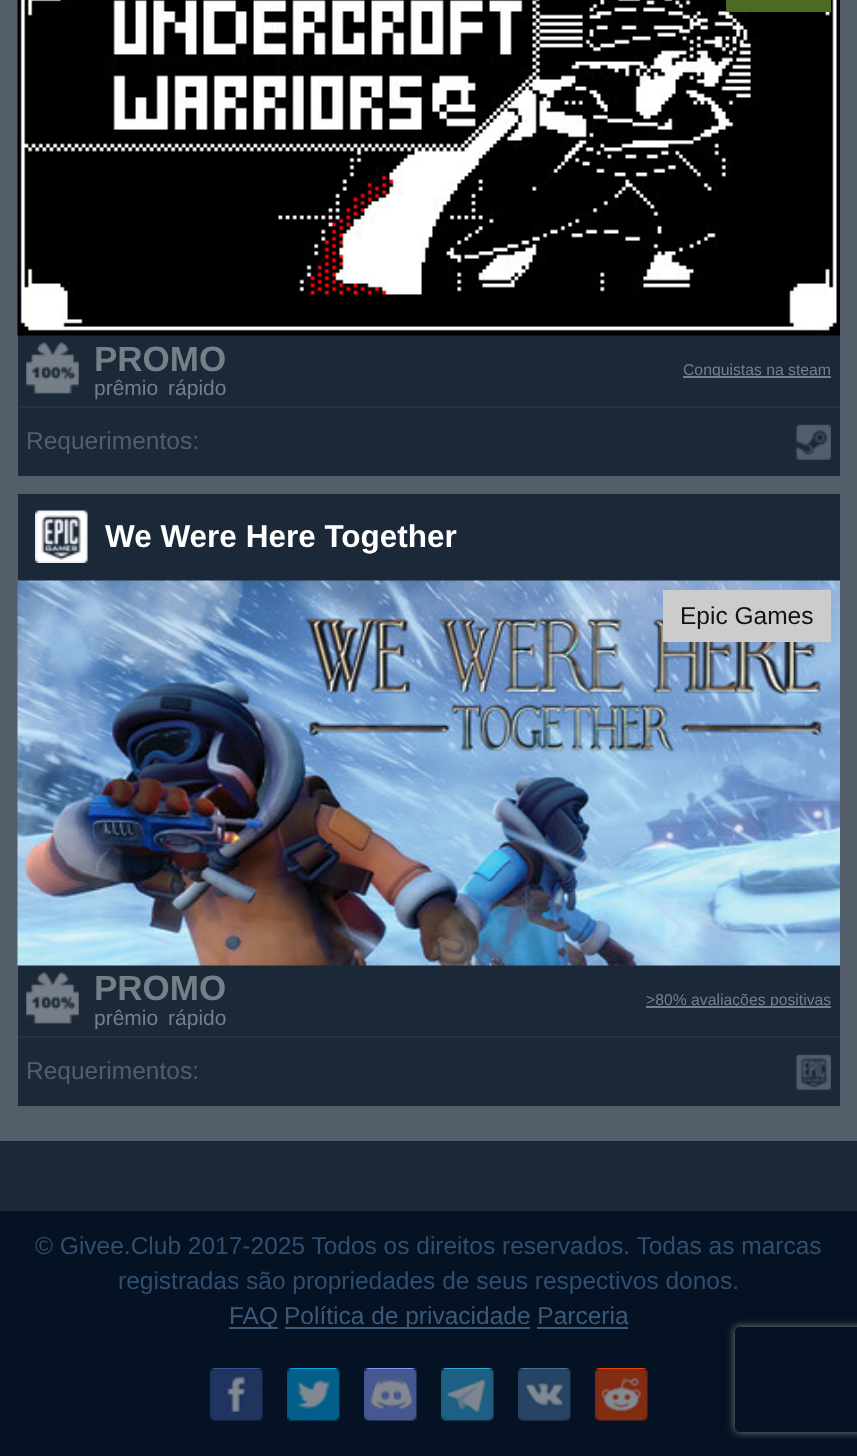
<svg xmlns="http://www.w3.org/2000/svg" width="857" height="1456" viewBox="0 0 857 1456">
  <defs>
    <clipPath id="clip1"><path d="M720 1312H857V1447H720ZM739 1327H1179C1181 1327 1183 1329 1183 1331V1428C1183 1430 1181 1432 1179 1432H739C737 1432 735 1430 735 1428V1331C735 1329 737 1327 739 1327Z" clip-rule="evenodd"/></clipPath>
    <filter id="blur1" x="-50%" y="-200%" width="200%" height="500%"><feGaussianBlur stdDeviation="4.5"/></filter>
  </defs>
  <rect width="100%" height="100%" fill="#1b2838"/>
  <rect x="0" y="0" width="857" height="1141" fill="#545e6a"/>
  <rect x="18" y="335" width="822" height="141" fill="#1b2838"/>
  <image x="17" y="0" width="823" height="336" href="img1.png"/>
  <rect x="726" y="0" width="105" height="12" fill="#4c6b22"/>
  <image x="26" y="342" width="53" height="52" href="img2.png"/>
  <text x="94" y="371" font-family="Liberation Sans" font-size="35" font-weight="bold" fill="#767e88">PROMO</text>
  <text x="94" y="395" word-spacing="4" font-family="Liberation Sans" font-size="21" fill="#767e88">prêmio rápido</text>
  <rect x="683" y="376" width="148" height="2" fill="#767e88"/>
  <text x="683" y="375" font-family="Liberation Sans" font-size="15.75" fill="#767e88">Conquistas na steam</text>
  <rect x="18" y="406" width="822" height="2" fill="#263241"/>
  <text x="26" y="449" font-family="Liberation Sans" font-size="24.5" fill="#545e6a">Requerimentos:</text>
  <image x="796" y="424" width="35" height="36" href="img3.png"/>
  <rect x="18" y="494" width="822" height="612" fill="#1b2838"/>
  <image x="35" y="510" width="53" height="53" href="img4.png"/>
  <text x="105" y="547" font-family="Liberation Sans" font-size="31.5" font-weight="bold" fill="#ffffff">We Were Here Together</text>
  <image x="17" y="580" width="823" height="386" href="img5.png"/>
  <rect x="663" y="590" width="168" height="52" fill="#cccccc"/>
  <text x="680" y="624" font-family="Liberation Sans" font-size="24.5" fill="#121212">Epic Games</text>
  <image x="26" y="972" width="53" height="52" href="img2.png"/>
  <text x="94" y="1000" font-family="Liberation Sans" font-size="35" font-weight="bold" fill="#767e88">PROMO</text>
  <text x="94" y="1025" word-spacing="4" font-family="Liberation Sans" font-size="21" fill="#767e88">prêmio rápido</text>
  <rect x="646" y="1006" width="185" height="2" fill="#767e88"/>
  <text x="646" y="1005" font-family="Liberation Sans" font-size="15.75" fill="#767e88">&gt;80% avaliações positivas</text>
  <rect x="18" y="1036" width="822" height="2" fill="#263241"/>
  <text x="26" y="1079" font-family="Liberation Sans" font-size="24.5" fill="#545e6a">Requerimentos:</text>
  <image x="796" y="1054" width="35" height="36" href="img6.png"/>
  <rect x="0" y="1211" width="857" height="245" fill="#051224"/>
  <text x="35" y="1254" font-family="Liberation Sans" font-size="24.5" fill="#304e6d">© Givee.Club 2017-2025 Todos os direitos reservados. Todas as marcas</text>
  <text x="118" y="1289" font-family="Liberation Sans" font-size="24.5" fill="#304e6d">registradas são propriedades de seus respectivos donos.</text>
  <rect x="229" y="1327" width="49" height="2" fill="#3c5a78"/>
  <text x="229" y="1324" font-family="Liberation Sans" font-size="24.5" fill="#3c5a78">FAQ</text>
  <rect x="285" y="1327" width="245" height="2" fill="#3c5a78"/>
  <text x="284" y="1324" font-family="Liberation Sans" font-size="24.5" fill="#3c5a78">Política de privacidade Parceria</text>
  <rect x="537" y="1327" width="91" height="2" fill="#3c5a78"/>
  <image x="210" y="1368" width="53" height="53" href="img7.png"/>
  <image x="287" y="1368" width="53" height="53" href="img8.png"/>
  <image x="364" y="1368" width="53" height="53" href="img9.png"/>
  <image x="441" y="1368" width="53" height="53" href="img10.png"/>
  <image x="518" y="1368" width="53" height="53" href="img11.png"/>
  <image x="595" y="1368" width="53" height="53" href="img12.png"/>
  <g clip-path="url(#clip1)">
    <rect x="735" y="1327" width="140" height="105" rx="4" fill="#808080" filter="url(#blur1)"/>
  </g>
</svg>
